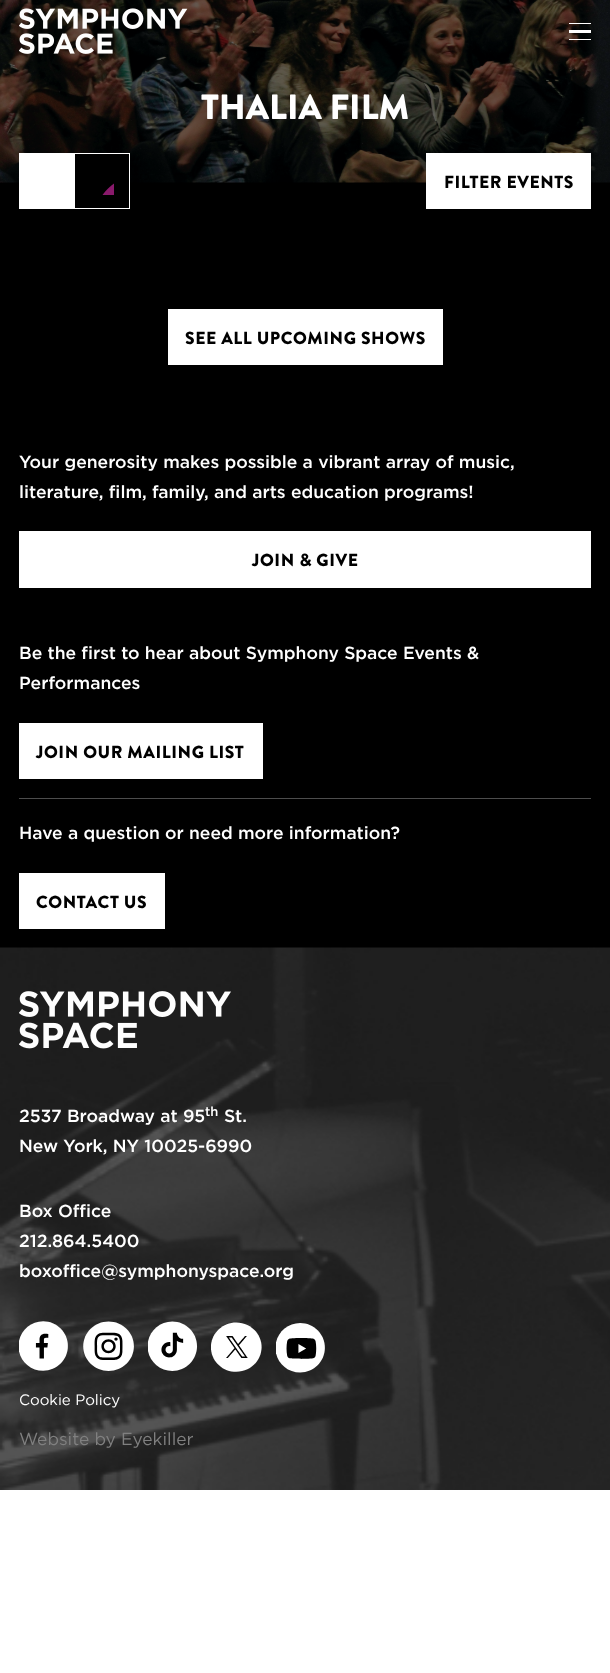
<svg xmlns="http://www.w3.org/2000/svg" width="610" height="1673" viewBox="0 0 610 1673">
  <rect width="100%" height="100%" fill="#ffffff"/>
  <rect x="0" y="182" width="610" height="766" fill="#000000"/>
  <image x="0" y="0" width="610" height="183" href="img2.png"/>
  <image x="19" y="8" width="169" height="46" href="img1.png"/>
  <rect x="569" y="23" width="22" height="1" fill="#ffffff"/>
  <rect x="569" y="39" width="22" height="1" fill="#ffffff"/>
  <rect x="569" y="30" width="22" height="3" fill="#ffffff"/>
  <text x="201" y="119" font-family="Brandon Grotesque" font-size="35" font-weight="900" fill="#ffffff">THALIA FILM</text>
  <rect x="19" y="153" width="55" height="56" fill="#ffffff"/>
  <rect x="75" y="154" width="54" height="29" fill="#000000"/>
  <rect x="74.5" y="153.5" width="55" height="55" fill="none" stroke="#ffffff"/>
  <image x="102" y="183" width="12" height="12" href="img3.png"/>
  <rect x="426" y="153" width="165" height="56" fill="#ffffff"/>
  <text x="444" y="188" font-family="Brandon Grotesque" font-size="17.5" font-weight="900" letter-spacing="0.55" fill="#000000">FILTER EVENTS</text>
  <rect x="168" y="309" width="275" height="56" fill="#ffffff"/>
  <text x="185" y="344" font-family="Brandon Grotesque" font-size="17.5" font-weight="900" letter-spacing="0.55" fill="#000000">SEE ALL UPCOMING SHOWS</text>
  <text x="19" y="468" font-family="'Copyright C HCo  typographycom'" font-size="17.5" font-weight="300" fill="#ffffff">Your generosity makes possible a vibrant array of music,</text>
  <text x="19" y="498" font-family="'Copyright C HCo  typographycom'" font-size="17.5" font-weight="300" fill="#ffffff">literature, film, family, and arts education programs!</text>
  <rect x="19" y="531" width="572" height="57" fill="#ffffff"/>
  <text x="252" y="566" font-family="Brandon Grotesque" font-size="17.5" font-weight="900" letter-spacing="0.55" fill="#000000">JOIN &amp; GIVE</text>
  <rect x="19" y="798" width="572" height="1" fill="#4d4d4d"/>
  <text x="19" y="659" font-family="'Copyright C HCo  typographycom'" font-size="17.5" font-weight="300" fill="#ffffff">Be the first to hear about Symphony Space Events &amp;</text>
  <text x="19" y="689" font-family="'Copyright C HCo  typographycom'" font-size="17.5" font-weight="300" fill="#ffffff">Performances</text>
  <rect x="19" y="723" width="244" height="56" fill="#ffffff"/>
  <text x="36" y="758" font-family="Brandon Grotesque" font-size="17.5" font-weight="900" letter-spacing="0.55" fill="#000000">JOIN OUR MAILING LIST</text>
  <text x="19" y="839" font-family="'Copyright C HCo  typographycom'" font-size="17.5" font-weight="300" fill="#ffffff">Have a question or need more information?</text>
  <rect x="19" y="873" width="146" height="56" fill="#ffffff"/>
  <text x="36" y="908" font-family="Brandon Grotesque" font-size="17.5" font-weight="900" letter-spacing="0.55" fill="#000000">CONTACT US</text>
  <image x="0" y="947" width="610" height="543" href="img4.png"/>
  <image x="19" y="991" width="212" height="58" href="img5.png"/>
  <text x="19" y="1122" font-family="'Copyright C HCo  typographycom'" font-size="17.5" font-weight="300" fill="#ffffff">2537 Broadway at 95</text>
  <text x="205" y="1116" font-family="'Copyright C HCo  typographycom'" font-size="13" font-weight="300" fill="#ffffff">th</text>
  <text x="224" y="1122" font-family="'Copyright C HCo  typographycom'" font-size="17.5" font-weight="300" fill="#ffffff">St.</text>
  <text x="19" y="1152" font-family="'Copyright C HCo  typographycom'" font-size="17.5" font-weight="300" fill="#ffffff">New York, NY 10025-6990</text>
  <text x="19" y="1217" font-family="'Copyright C HCo  typographycom'" font-size="17.5" font-weight="300" fill="#ffffff">Box Office</text>
  <text x="19" y="1247" font-family="'Copyright C HCo  typographycom'" font-size="17.5" font-weight="300" fill="#ffffff">212.864.5400</text>
  <text x="19" y="1277" font-family="'Copyright C HCo  typographycom'" font-size="17.5" font-weight="300" fill="#ffffff">boxoffice@symphonyspace.org</text>
  <image x="19" y="1321" width="49" height="50" href="img6.png"/>
  <image x="83" y="1321" width="51" height="50" href="img7.png"/>
  <image x="148" y="1321" width="50" height="50" href="img8.png"/>
  <image x="211" y="1322" width="51" height="50" href="img9.png"/>
  <image x="276" y="1323" width="49" height="50" href="img10.png"/>
  <text x="19" y="1405" font-family="'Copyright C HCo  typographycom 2'" font-size="15" font-weight="300" fill="#ffffff">Cookie Policy</text>
  <text x="19" y="1445" font-family="'Copyright C HCo  typographycom 2'" font-size="17.4" font-weight="300" fill="#808080">Website by Eyekiller</text>
</svg>
